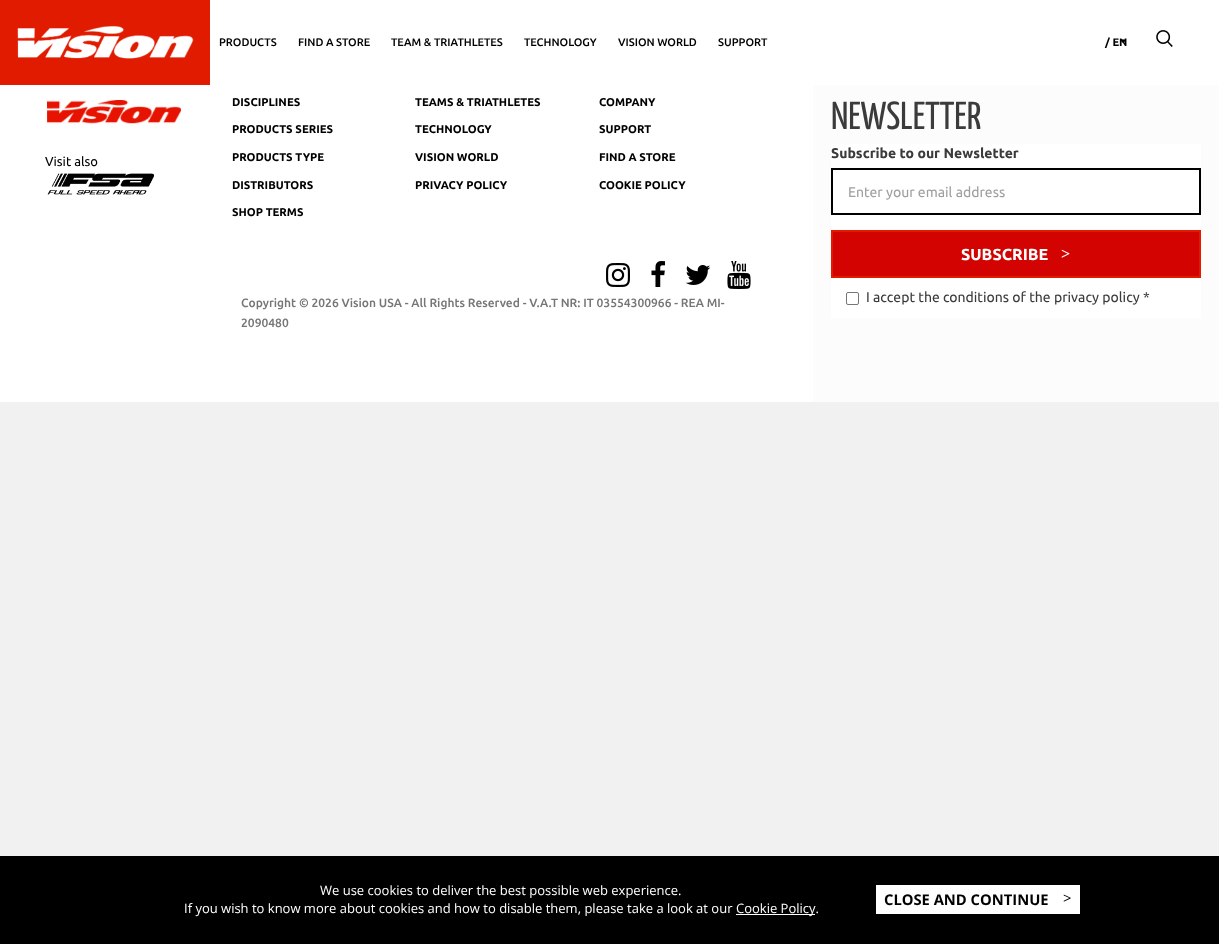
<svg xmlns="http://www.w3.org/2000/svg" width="1219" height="944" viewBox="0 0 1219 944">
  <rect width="100%" height="100%" fill="#f1f1f1"/>
  <rect x="210" y="0" width="1009" height="85" fill="#ffffff"/>
  <rect x="0" y="0" width="210" height="85" fill="#e01b00"/>
  <image x="17" y="25" width="177" height="34" href="img1.png"/>
  <text x="219" y="46" font-family="Ubuntu" font-size="11" font-weight="500" fill="#000000">PRODUCTS</text>
  <text x="298" y="46" font-family="Ubuntu" font-size="11" font-weight="500" fill="#000000">FIND A STORE</text>
  <text x="391" y="46" font-family="Ubuntu" font-size="11" font-weight="500" fill="#000000">TEAM &amp; TRIATHLETES</text>
  <text x="524" y="46" font-family="Ubuntu" font-size="11" font-weight="500" fill="#000000">TECHNOLOGY</text>
  <text x="618" y="46" font-family="Ubuntu" font-size="11" font-weight="500" fill="#000000">VISION WORLD</text>
  <text x="718" y="46" font-family="Ubuntu" font-size="11" font-weight="500" fill="#000000">SUPPORT</text>
  <text x="1105" y="46" font-family="Ubuntu" font-size="11" font-weight="bold" fill="#000000">/ EN</text>
  <image x="1120" y="39" width="6" height="4" href="img2.png"/>
  <image x="1156" y="30" width="17" height="17" href="img3.png"/>
  <rect x="0" y="85" width="813" height="317" fill="#ffffff"/>
  <image x="47" y="100" width="134" height="24" href="img4.png"/>
  <text x="45" y="166" font-family="Ubuntu" font-size="13" fill="#000000">Visit also</text>
  <image x="47" y="173" width="107" height="22" href="img5.png"/>
  <text x="232" y="106" font-family="Ubuntu" font-size="11.25" font-weight="bold" fill="#000000">DISCIPLINES</text>
  <text x="415" y="106" font-family="Ubuntu" font-size="11.25" font-weight="bold" fill="#000000">TEAMS &amp; TRIATHLETES</text>
  <text x="599" y="106" font-family="Ubuntu" font-size="11.25" font-weight="bold" fill="#000000">COMPANY</text>
  <text x="232" y="133" font-family="Ubuntu" font-size="11.25" font-weight="bold" fill="#000000">PRODUCTS SERIES</text>
  <text x="415" y="133" font-family="Ubuntu" font-size="11.25" font-weight="bold" fill="#000000">TECHNOLOGY</text>
  <text x="599" y="133" font-family="Ubuntu" font-size="11.25" font-weight="bold" fill="#000000">SUPPORT</text>
  <text x="232" y="161" font-family="Ubuntu" font-size="11.25" font-weight="bold" fill="#000000">PRODUCTS TYPE</text>
  <text x="415" y="161" font-family="Ubuntu" font-size="11.25" font-weight="bold" fill="#000000">VISION WORLD</text>
  <text x="599" y="161" font-family="Ubuntu" font-size="11.25" font-weight="bold" fill="#000000">FIND A STORE</text>
  <text x="232" y="189" font-family="Ubuntu" font-size="11.25" font-weight="bold" fill="#000000">DISTRIBUTORS</text>
  <text x="415" y="189" font-family="Ubuntu" font-size="11.25" font-weight="bold" fill="#000000">PRIVACY POLICY</text>
  <text x="599" y="189" font-family="Ubuntu" font-size="11.25" font-weight="bold" fill="#000000">COOKIE POLICY</text>
  <text x="232" y="216" font-family="Ubuntu" font-size="11.25" font-weight="bold" fill="#000000">SHOP TERMS</text>
  <image x="606" y="263" width="24" height="24" href="img6.png"/>
  <image x="651" y="261" width="14" height="26" href="img7.png"/>
  <image x="685" y="265" width="26" height="20" href="img8.png"/>
  <image x="727" y="261" width="24" height="28" href="img9.png"/>
  <text x="241" y="307" font-family="Ubuntu" font-size="12" font-weight="500" fill="#767676">Copyright © 2026 Vision USA - All Rights Reserved - V.A.T NR: IT 03554300966 - REA MI-</text>
  <text x="241" y="327" font-family="Ubuntu" font-size="12" font-weight="500" fill="#767676">2090480</text>
  <rect x="813" y="85" width="406" height="317" fill="#fcfcfc"/>
  <text x="831" y="129" font-family="Yanone Kaffeesatz" font-size="39" fill="#3b3b3b">NEWSLETTER</text>
  <rect x="831" y="144" width="370" height="174" fill="#ffffff"/>
  <text x="831" y="158" font-family="Ubuntu" font-size="14" font-weight="bold" fill="#3b3b3b">Subscribe to our Newsletter</text>
  <rect x="832" y="169" width="368" height="45" fill="none" stroke="#000000" stroke-width="2"/>
  <text x="848" y="197" font-family="Ubuntu" font-size="14" fill="#a0a0a0">Enter your email address</text>
  <rect x="832" y="231" width="368" height="46" fill="#d30301" stroke="#e01b00" stroke-width="2"/>
  <text x="961" y="260" font-family="Ubuntu" font-size="16" font-weight="bold" fill="#ffffff">SUBSCRIBE</text>
  <text x="1061" y="259" font-family="Liberation Serif" font-size="16" font-weight="bold" fill="#ffffff">&gt;</text>
  <rect x="846.5" y="292.5" width="12" height="12" rx="1.5" fill="none" stroke="#767676"/>
  <text x="866" y="302" font-family="Ubuntu" font-size="14" fill="#3b3b3b">I accept the conditions of the privacy policy *</text>
  <rect x="0" y="856" width="1219" height="88" fill="#000000"/>
  <text x="320" y="895" font-family="Open Sans" font-size="13" fill="#ffffff">We use cookies to deliver the best possible web experience.</text>
  <text x="184" y="913" font-family="Open Sans" font-size="13" fill="#ffffff">If you wish to know more about cookies and how to disable them, please take a look at our</text>
  <rect x="736" y="914" width="79" height="1" fill="#ffffff"/>
  <text x="736" y="913" font-family="Open Sans" font-size="13" fill="#ffffff">Cookie Policy.</text>
  <rect x="876" y="885" width="204" height="29" fill="#ffffff"/>
  <text x="884" y="905" font-family="Open Sans" font-size="14.75" font-weight="bold" fill="#000000">CLOSE AND CONTINUE</text>
  <text x="1063" y="903" font-family="Liberation Serif" font-size="14.75" font-weight="bold" fill="#000000">&gt;</text>
</svg>
